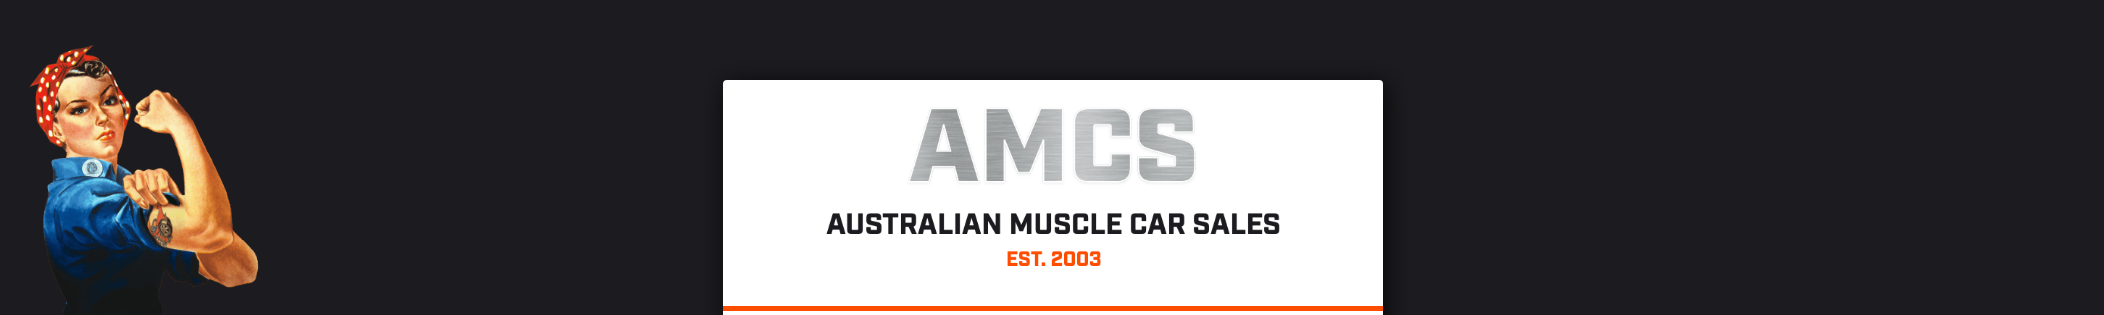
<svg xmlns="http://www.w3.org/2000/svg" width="2104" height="315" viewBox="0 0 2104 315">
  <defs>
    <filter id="blur1" x="-50%" y="-200%" width="200%" height="500%"><feGaussianBlur stdDeviation="12.5"/></filter>
  </defs>
  <rect width="100%" height="100%" fill="#1c1b1f"/>
  <image x="29" y="45" width="230" height="270" href="img1.png"/>
  <rect x="726" y="84" width="660" height="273" rx="4" fill="#000000" fill-opacity="0.85" filter="url(#blur1)"/>
  <rect x="723" y="80" width="660" height="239" rx="4" fill="#ffffff"/>
  <rect x="723" y="306" width="660" height="5" fill="#ff4d00"/>
  <image x="826" y="107" width="454" height="159" href="img2.png"/>
</svg>
